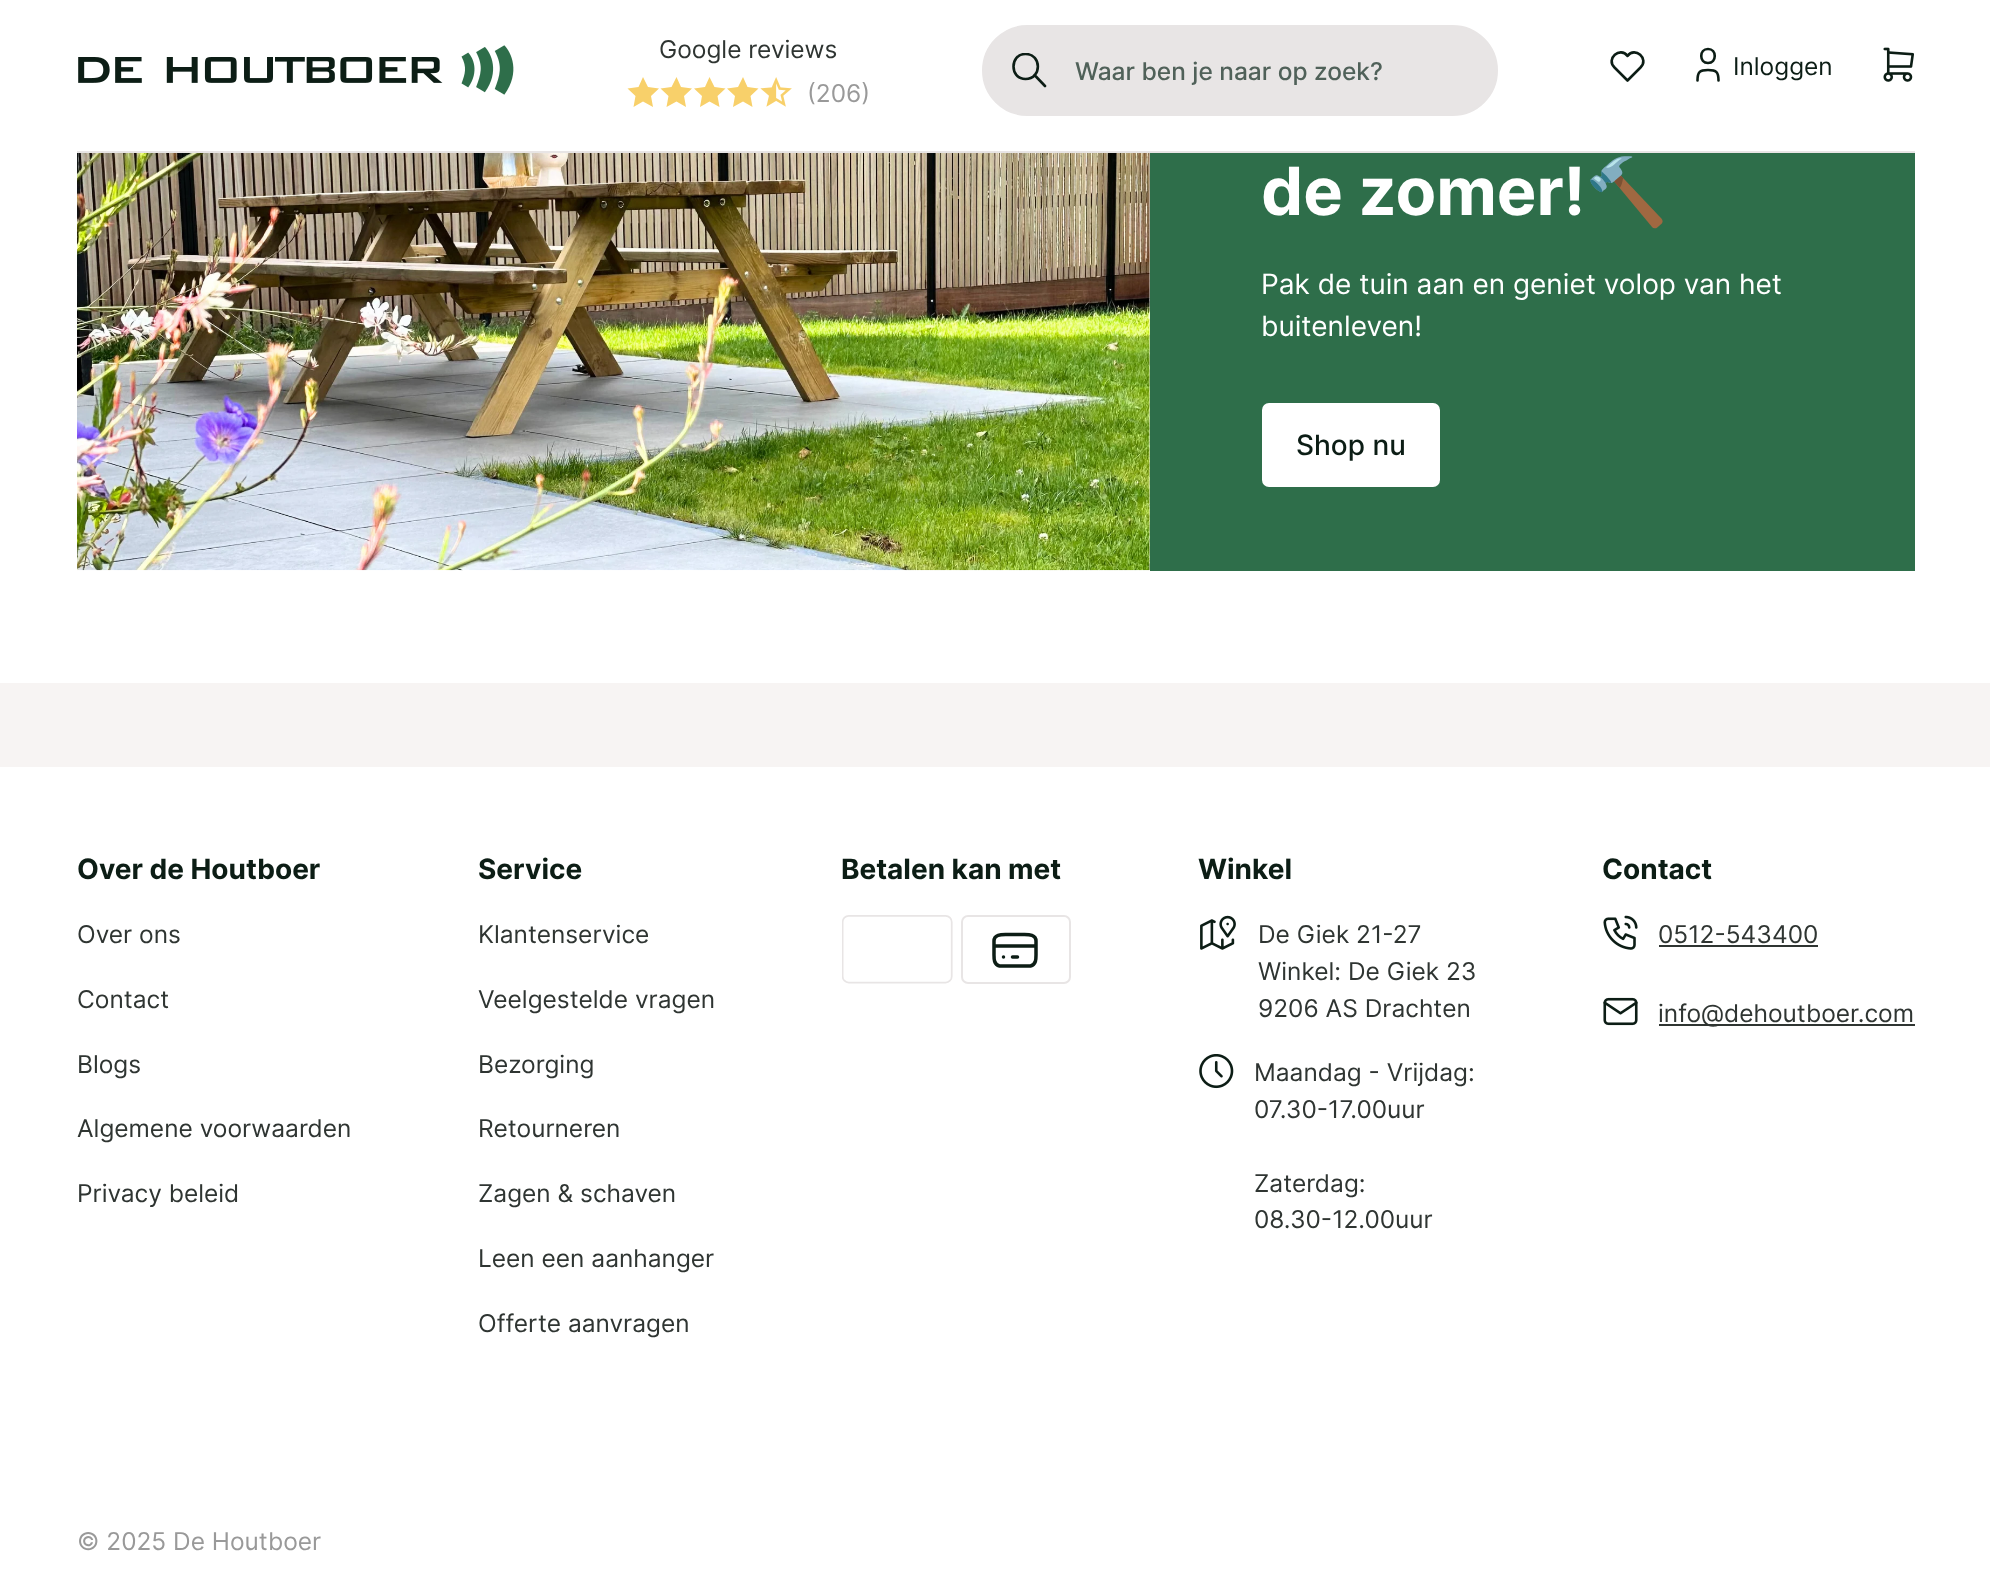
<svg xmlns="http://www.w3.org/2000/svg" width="1990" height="1572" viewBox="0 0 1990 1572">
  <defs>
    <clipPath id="clip1"><rect x="1012" y="53" width="35" height="35"/></clipPath>
  </defs>
  <rect width="100%" height="100%" fill="#ffffff"/>
  <image x="78" y="45" width="436" height="50" href="img1.png"/>
  <text x="659" y="58" font-family="Inter" font-size="24.5" fill="#2f3532">Google reviews</text>
  <path d="M643 101.5L633.5 107L635.5 96L627.5 88.5L638.5 87L643 77L648 87L659 88.5L651 96L653 107Z" fill="#f8d06a"/>
  <path d="M676.5 101.5L666.5 107L668.5 96L660.5 88.5L671.5 87L676.5 77L681 87L692 88.5L684 96L686 107Z" fill="#f8d06a"/>
  <path d="M709.5 101.5L700 107L702 96L694 88.5L705 87L709.5 77L714.5 87L725.5 88.5L717.5 96L719.5 107Z" fill="#f8d06a"/>
  <path d="M743 101.5L733 107L735 96L727 88.5L738 87L743 77L747.5 87L758.5 88.5L750.5 96L752.5 107Z" fill="#f8d06a"/>
  <image x="760" y="77" width="32" height="30" href="img2.png"/>
  <text x="807" y="102" font-family="Inter" font-size="24.5" fill="#999999">(206)</text>
  <rect x="983" y="26" width="514" height="89" rx="44.5" fill="#e8e5e5" stroke="#e8e5e5" stroke-width="2"/>
  <g clip-path="url(#clip1)">
    <path d="M1025.5 79C1042 79 1042 54 1025.5 54C1009.5 54 1009.5 79 1025.5 79ZM1045 86L1034.5 75" fill="none" stroke="#0c1d15" stroke-width="2.6" stroke-linecap="round" stroke-linejoin="round"/>
  </g>
  <text x="1075" y="80" font-family="Inter" font-size="24.5" font-weight="500" fill="#506159">Waar ben je naar op zoek?</text>
  <path d="M1640.5 67.5L1627.5 80.5L1614.5 67.5M1614.5 67.5C1605.5 59 1620 46 1627.5 56C1635 46 1649.5 59 1640.5 67.5" fill="none" stroke="#0c1d15" stroke-width="2.6" stroke-linecap="round" stroke-linejoin="round"/>
  <path d="M1708 63C1717 63 1717 49 1708 49C1699 49 1699 63 1708 63ZM1697.5 80.5C1697.5 72 1699.5 70 1708 70C1716.5 70 1718.5 72 1718.5 80.5" fill="none" stroke="#0c1d15" stroke-width="2.6" stroke-linecap="round" stroke-linejoin="round"/>
  <text x="1733" y="75" font-family="Inter" font-size="24.5" fill="#0c1d15">Inloggen</text>
  <image x="1883" y="47" width="31" height="35" href="img3.png"/>
  <rect x="77" y="151" width="1838" height="2" fill="#e8e5e5"/>
  <image x="77" y="153" width="1073" height="418" href="img4.png"/>
  <rect x="1150" y="153" width="765" height="418" fill="#2e6e4a"/>
  <text x="1261" y="215" font-family="Inter" font-size="66.5" font-weight="bold" fill="#ffffff">de zomer!</text>
  <text x="1585" y="215" font-family="Noto Color Emoji" font-size="66.5" font-weight="bold" fill="#ffffff">🔨</text>
  <text x="1261" y="294" font-family="Inter" font-size="28" fill="#ffffff">Pak de tuin aan en geniet volop van het</text>
  <text x="1261" y="336" font-family="Inter" font-size="28" fill="#ffffff">buitenleven!</text>
  <rect x="1262" y="403" width="178" height="84" rx="7" fill="#ffffff"/>
  <text x="1296" y="455" font-family="Inter" font-size="28" font-weight="500" fill="#0c1d15">Shop nu</text>
  <rect x="0" y="683" width="1990" height="84" fill="#f7f4f3"/>
  <text x="77" y="879" font-family="Inter" font-size="28" font-weight="bold" fill="#0c1d15">Over de Houtboer</text>
  <text x="77" y="943" font-family="Inter" font-size="24.5" fill="#2f3532">Over ons</text>
  <text x="77" y="1008" font-family="Inter" font-size="24.5" fill="#2f3532">Contact</text>
  <text x="77" y="1073" font-family="Inter" font-size="24.5" fill="#2f3532">Blogs</text>
  <text x="77" y="1137" font-family="Inter" font-size="24.5" fill="#2f3532">Algemene voorwaarden</text>
  <text x="77" y="1202" font-family="Inter" font-size="24.5" fill="#2f3532">Privacy beleid</text>
  <text x="478" y="879" font-family="Inter" font-size="28" font-weight="bold" fill="#0c1d15">Service</text>
  <text x="478" y="943" font-family="Inter" font-size="24.5" fill="#2f3532">Klantenservice</text>
  <text x="478" y="1008" font-family="Inter" font-size="24.5" fill="#2f3532">Veelgestelde vragen</text>
  <text x="478" y="1073" font-family="Inter" font-size="24.5" fill="#2f3532">Bezorging</text>
  <text x="478" y="1137" font-family="Inter" font-size="24.5" fill="#2f3532">Retourneren</text>
  <text x="478" y="1202" font-family="Inter" font-size="24.5" fill="#2f3532">Zagen &amp; schaven</text>
  <text x="478" y="1267" font-family="Inter" font-size="24.5" fill="#2f3532">Leen een aanhanger</text>
  <text x="478" y="1332" font-family="Inter" font-size="24.5" fill="#2f3532">Offerte aanvragen</text>
  <text x="841" y="879" font-family="Inter" font-size="28" font-weight="bold" fill="#0c1d15">Betalen kan met</text>
  <image x="842" y="915" width="111" height="69" href="img5.png"/>
  <rect x="962" y="916" width="108" height="67" rx="6" fill="none" stroke="#e8e5e5" stroke-width="2"/>
  <path d="M994 946H1036M1003.5 957H1003.5M1012.5 957H1017.5M994 941C994 934.5 1001 934.5 1005.5 934.5H1024.5C1029 934.5 1036 934.5 1036 941V953.5C1036 958 1036.5 964.5 1030.5 966H999.5C993.5 964.5 994 958 994 953.5Z" fill="none" stroke="#0c1d15" stroke-width="3.5" stroke-linecap="round" stroke-linejoin="round"/>
  <text x="1198" y="879" font-family="Inter" font-size="28" font-weight="bold" fill="#0c1d15">Winkel</text>
  <image x="1200" y="915" width="36" height="35" href="img6.png"/>
  <text x="1258" y="943" font-family="Inter" font-size="24.5" fill="#2f3532">De Giek 21-27</text>
  <text x="1258" y="980" font-family="Inter" font-size="24.5" fill="#2f3532">Winkel: De Giek 23</text>
  <text x="1258" y="1017" font-family="Inter" font-size="24.5" fill="#2f3532">9206 AS Drachten</text>
  <image x="1199" y="1054" width="35" height="35" href="img7.png"/>
  <text x="1254" y="1081" font-family="Inter" font-size="24.5" fill="#2f3532">Maandag - Vrijdag:</text>
  <text x="1254" y="1118" font-family="Inter" font-size="24.5" fill="#2f3532">07.30-17.00uur</text>
  <text x="1254" y="1192" font-family="Inter" font-size="24.5" fill="#2f3532">Zaterdag:</text>
  <text x="1254" y="1228" font-family="Inter" font-size="24.5" fill="#2f3532">08.30-12.00uur</text>
  <text x="1602" y="879" font-family="Inter" font-size="28" font-weight="bold" fill="#0c1d15">Contact</text>
  <image x="1603" y="915" width="35" height="35" href="img8.png"/>
  <text x="1658" y="943" font-family="Inter" font-size="24.5" fill="#2f3532">0512-543400</text>
  <rect x="1659" y="945" width="159" height="2" fill="#2f3532"/>
  <image x="1603" y="997" width="35" height="29" href="img9.png"/>
  <rect x="1659" y="1024" width="256" height="2" fill="#2f3532"/>
  <text x="1658" y="1022" font-family="Inter" font-size="24.5" fill="#2f3532">info@dehoutboer.com</text>
  <text x="77" y="1550" font-family="Inter" font-size="24.5" fill="#999999">© 2025 De Houtboer</text>
</svg>
